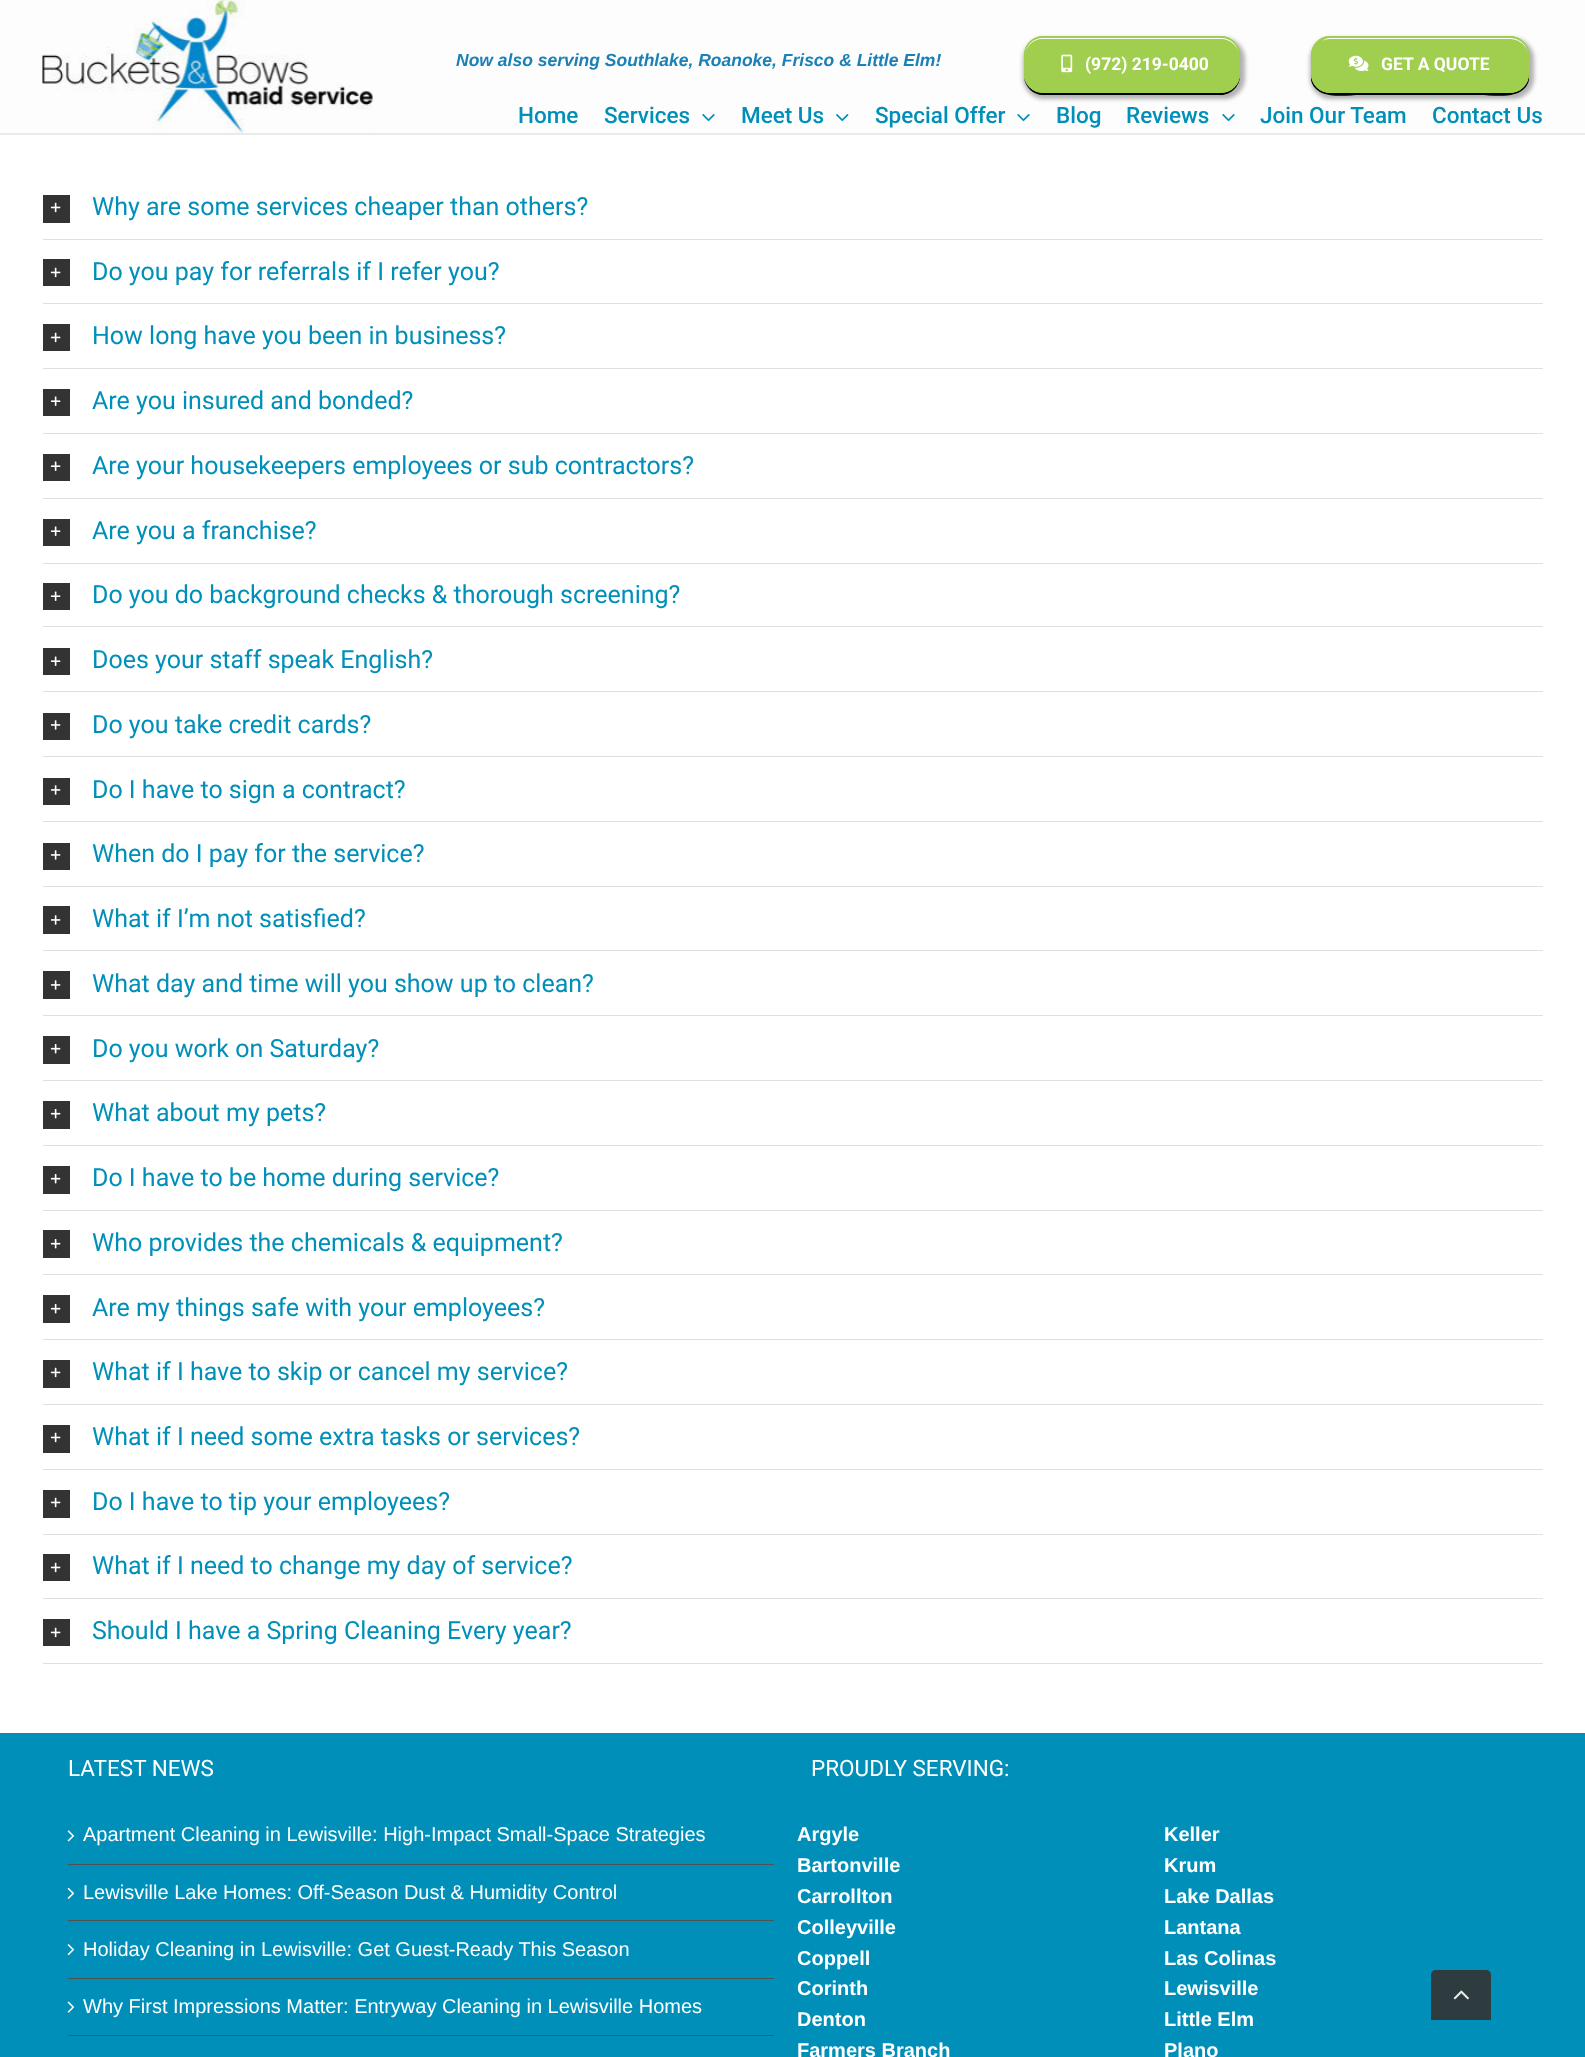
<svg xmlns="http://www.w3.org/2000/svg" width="1585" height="2057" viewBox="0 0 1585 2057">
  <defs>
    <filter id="blur1" x="-50%" y="-200%" width="200%" height="500%"><feGaussianBlur stdDeviation="0.5"/></filter>
    <filter id="blur2" x="-50%" y="-200%" width="200%" height="500%"><feGaussianBlur stdDeviation="2"/></filter>
  </defs>
  <rect width="100%" height="100%" fill="#ffffff"/>
  <rect x="0" y="0" width="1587" height="135" fill="#ebeaea" filter="url(#blur1)"/>
  <rect x="0" y="0" width="1585" height="133" fill="#fdfdfd"/>
  <image x="42" y="0" width="331" height="133" href="img1.png"/>
  <text x="456" y="66" font-family="Liberation Sans" font-size="17.5" font-weight="bold" font-style="italic" fill="#1a80b6">Now also serving Southlake, Roanoke, Frisco &amp; Little Elm!</text>
  <rect x="1023" y="38" width="222" height="61" rx="21" fill="#000000" fill-opacity="0.3" filter="url(#blur2)"/>
  <path d="M1024 77C1025 87 1033 95 1043 95H1221C1231 95 1240 86 1240 76V74C1240 84 1232 92 1221 92H1042C1033 92 1026 86 1024 77Z" fill="#000000"/>
  <rect x="1024" y="36" width="216" height="57" rx="19" fill="#a0ce4e"/>
  <path d="M1042 39H1221C1231 39 1239 47 1239 56C1239 46 1231 38 1221 38H1043C1033 38 1025 46 1025 56C1025 47 1033 39 1042 39Z" fill="#ffffff"/>
  <rect x="1024.5" y="36.5" width="215" height="56" rx="18.5" fill="none" stroke="#a0ce4e"/>
  <image x="1061" y="54" width="12" height="19" href="img2.png"/>
  <text x="1085" y="70" font-family="Roboto" font-size="17.5" font-weight="bold" fill="#ffffff">(972) 219-0400</text>
  <rect x="1310" y="38" width="224" height="61" rx="21" fill="#000000" fill-opacity="0.3" filter="url(#blur2)"/>
  <path d="M1311 55V80C1316 101 1346 95 1360 95H1480C1494 95 1524 101 1529 80V55L1528 78C1524 99 1494 92 1480 92H1360C1346 92 1316 99 1312 78Z" fill="#000000"/>
  <rect x="1311" y="36" width="218" height="57" rx="19" fill="#a0ce4e"/>
  <path d="M1330 39H1510C1520 39 1528 47 1528 56C1528 46 1520 38 1510 38H1331C1326 38 1322 40 1319 43C1322 40 1326 39 1330 39Z" fill="#ffffff"/>
  <rect x="1311.5" y="36.5" width="217" height="56" rx="18.5" fill="none" stroke="#a0ce4e"/>
  <image x="1348" y="55" width="21" height="17" href="img3.png"/>
  <text x="1381" y="70" font-family="Roboto" font-size="17.5" font-weight="bold" fill="#ffffff">GET A QUOTE</text>
  <text x="518" y="123" font-family="Roboto" font-size="22.5" font-weight="500" fill="#008fb9">Home</text>
  <text x="604" y="123" font-family="Roboto" font-size="22.5" font-weight="500" fill="#008fb9">Services</text>
  <image x="702" y="114" width="13" height="8" href="img4.png"/>
  <text x="741" y="123" font-family="Roboto" font-size="22.5" font-weight="500" fill="#008fb9">Meet Us</text>
  <image x="836" y="114" width="13" height="8" href="img5.png"/>
  <text x="875" y="123" font-family="Roboto" font-size="22.5" font-weight="500" fill="#008fb9">Special Offer</text>
  <image x="1017" y="114" width="13" height="8" href="img4.png"/>
  <text x="1056" y="123" font-family="Roboto" font-size="22.5" font-weight="500" fill="#008fb9">Blog</text>
  <text x="1126" y="123" font-family="Roboto" font-size="22.5" font-weight="500" fill="#008fb9">Reviews</text>
  <image x="1222" y="114" width="13" height="8" href="img4.png"/>
  <text x="1260" y="123" font-family="Roboto" font-size="22.5" font-weight="500" fill="#008fb9">Join Our Team</text>
  <text x="1432" y="123" font-family="Roboto" font-size="22.5" font-weight="500" fill="#008fb9">Contact Us</text>
  <rect x="43" y="239" width="1500" height="1" fill="#e0dede"/>
  <rect x="43" y="195" width="27" height="28" fill="#333333"/>
  <image x="50" y="202" width="11" height="11" href="img6.png"/>
  <text x="92" y="215" font-family="Roboto" font-size="25" fill="#008fb9">Why are some services cheaper than others?</text>
  <rect x="43" y="303" width="1500" height="1" fill="#e0dede"/>
  <rect x="43" y="259" width="27" height="27" fill="#333333"/>
  <image x="50" y="267" width="11" height="11" href="img6.png"/>
  <text x="92" y="280" font-family="Roboto" font-size="25" fill="#008fb9">Do you pay for referrals if I refer you?</text>
  <rect x="43" y="368" width="1500" height="1" fill="#e0dede"/>
  <rect x="43" y="324" width="27" height="27" fill="#333333"/>
  <image x="50" y="332" width="11" height="11" href="img6.png"/>
  <text x="92" y="344" font-family="Roboto" font-size="25" fill="#008fb9">How long have you been in business?</text>
  <rect x="43" y="433" width="1500" height="1" fill="#e0dede"/>
  <rect x="43" y="389" width="27" height="27" fill="#333333"/>
  <image x="50" y="396" width="11" height="10" href="img7.png"/>
  <text x="92" y="409" font-family="Roboto" font-size="25" fill="#008fb9">Are you insured and bonded?</text>
  <rect x="43" y="498" width="1500" height="1" fill="#e0dede"/>
  <rect x="43" y="454" width="27" height="27" fill="#333333"/>
  <image x="50" y="461" width="11" height="10" href="img7.png"/>
  <text x="92" y="474" font-family="Roboto" font-size="25" fill="#008fb9">Are your housekeepers employees or sub contractors?</text>
  <rect x="43" y="563" width="1500" height="1" fill="#e0dede"/>
  <rect x="43" y="519" width="27" height="27" fill="#333333"/>
  <image x="50" y="526" width="11" height="10" href="img7.png"/>
  <text x="92" y="539" font-family="Roboto" font-size="25" fill="#008fb9">Are you a franchise?</text>
  <rect x="43" y="626" width="1500" height="1" fill="#e0dede"/>
  <rect x="43" y="583" width="27" height="27" fill="#333333"/>
  <image x="50" y="591" width="11" height="10" href="img7.png"/>
  <text x="92" y="603" font-family="Roboto" font-size="25" fill="#008fb9">Do you do background checks &amp; thorough screening?</text>
  <rect x="43" y="691" width="1500" height="1" fill="#e0dede"/>
  <rect x="43" y="648" width="27" height="27" fill="#333333"/>
  <image x="50" y="656" width="11" height="10" href="img7.png"/>
  <text x="92" y="668" font-family="Roboto" font-size="25" fill="#008fb9">Does your staff speak English?</text>
  <rect x="43" y="756" width="1500" height="1" fill="#e0dede"/>
  <rect x="43" y="713" width="27" height="27" fill="#333333"/>
  <image x="50" y="720" width="11" height="10" href="img8.png"/>
  <text x="92" y="733" font-family="Roboto" font-size="25" fill="#008fb9">Do you take credit cards?</text>
  <rect x="43" y="821" width="1500" height="1" fill="#e0dede"/>
  <rect x="43" y="778" width="27" height="27" fill="#333333"/>
  <image x="50" y="785" width="11" height="10" href="img8.png"/>
  <text x="92" y="798" font-family="Roboto" font-size="25" fill="#008fb9">Do I have to sign a contract?</text>
  <rect x="43" y="886" width="1500" height="1" fill="#e0dede"/>
  <rect x="43" y="843" width="27" height="27" fill="#333333"/>
  <image x="50" y="850" width="11" height="10" href="img8.png"/>
  <text x="92" y="862" font-family="Roboto" font-size="25" fill="#008fb9">When do I pay for the service?</text>
  <rect x="43" y="950" width="1500" height="1" fill="#e0dede"/>
  <rect x="43" y="906" width="27" height="28" fill="#333333"/>
  <image x="50" y="915" width="11" height="10" href="img8.png"/>
  <text x="92" y="927" font-family="Roboto" font-size="25" fill="#008fb9">What if I’m not satisfied?</text>
  <rect x="43" y="1015" width="1500" height="1" fill="#e0dede"/>
  <rect x="43" y="971" width="27" height="28" fill="#333333"/>
  <image x="50" y="980" width="11" height="10" href="img8.png"/>
  <text x="92" y="992" font-family="Roboto" font-size="25" fill="#008fb9">What day and time will you show up to clean?</text>
  <rect x="43" y="1080" width="1500" height="1" fill="#e0dede"/>
  <rect x="43" y="1036" width="27" height="28" fill="#333333"/>
  <image x="50" y="1044" width="11" height="10" href="img9.png"/>
  <text x="92" y="1057" font-family="Roboto" font-size="25" fill="#008fb9">Do you work on Saturday?</text>
  <rect x="43" y="1145" width="1500" height="1" fill="#e0dede"/>
  <rect x="43" y="1101" width="27" height="28" fill="#333333"/>
  <image x="50" y="1109" width="11" height="10" href="img9.png"/>
  <text x="92" y="1121" font-family="Roboto" font-size="25" fill="#008fb9">What about my pets?</text>
  <rect x="43" y="1210" width="1500" height="1" fill="#e0dede"/>
  <rect x="43" y="1166" width="27" height="28" fill="#333333"/>
  <image x="50" y="1174" width="11" height="10" href="img9.png"/>
  <text x="92" y="1186" font-family="Roboto" font-size="25" fill="#008fb9">Do I have to be home during service?</text>
  <rect x="43" y="1274" width="1500" height="1" fill="#e0dede"/>
  <rect x="43" y="1230" width="27" height="28" fill="#333333"/>
  <image x="50" y="1239" width="11" height="10" href="img9.png"/>
  <text x="92" y="1251" font-family="Roboto" font-size="25" fill="#008fb9">Who provides the chemicals &amp; equipment?</text>
  <rect x="43" y="1339" width="1500" height="1" fill="#e0dede"/>
  <rect x="43" y="1295" width="27" height="28" fill="#333333"/>
  <image x="50" y="1304" width="11" height="10" href="img9.png"/>
  <text x="92" y="1316" font-family="Roboto" font-size="25" fill="#008fb9">Are my things safe with your employees?</text>
  <rect x="43" y="1404" width="1500" height="1" fill="#e0dede"/>
  <rect x="43" y="1360" width="27" height="28" fill="#333333"/>
  <image x="50" y="1367" width="11" height="11" href="img6.png"/>
  <text x="92" y="1380" font-family="Roboto" font-size="25" fill="#008fb9">What if I have to skip or cancel my service?</text>
  <rect x="43" y="1469" width="1500" height="1" fill="#e0dede"/>
  <rect x="43" y="1425" width="27" height="28" fill="#333333"/>
  <image x="50" y="1432" width="11" height="11" href="img6.png"/>
  <text x="92" y="1445" font-family="Roboto" font-size="25" fill="#008fb9">What if I need some extra tasks or services?</text>
  <rect x="43" y="1534" width="1500" height="1" fill="#e0dede"/>
  <rect x="43" y="1490" width="27" height="28" fill="#333333"/>
  <image x="50" y="1497" width="11" height="11" href="img6.png"/>
  <text x="92" y="1510" font-family="Roboto" font-size="25" fill="#008fb9">Do I have to tip your employees?</text>
  <rect x="43" y="1598" width="1500" height="1" fill="#e0dede"/>
  <rect x="43" y="1554" width="27" height="27" fill="#333333"/>
  <image x="50" y="1562" width="11" height="11" href="img6.png"/>
  <text x="92" y="1574" font-family="Roboto" font-size="25" fill="#008fb9">What if I need to change my day of service?</text>
  <rect x="43" y="1663" width="1500" height="1" fill="#e0dede"/>
  <rect x="43" y="1619" width="27" height="27" fill="#333333"/>
  <image x="50" y="1627" width="11" height="11" href="img6.png"/>
  <text x="92" y="1639" font-family="Roboto" font-size="25" fill="#008fb9">Should I have a Spring Cleaning Every year?</text>
  <rect x="0" y="1733" width="1585" height="324" fill="#008fb9"/>
  <text x="68" y="1776" font-family="Roboto" font-size="22.5" fill="#ffffff">LATEST NEWS</text>
  <rect x="68" y="1864" width="706" height="1" fill="#505152"/>
  <image x="67" y="1830" width="8" height="12" href="img10.png"/>
  <text x="83" y="1841" font-family="Liberation Sans" font-size="20" fill="#ffffff">Apartment Cleaning in Lewisville: High-Impact Small-Space Strategies</text>
  <rect x="68" y="1920" width="706" height="1" fill="#505152"/>
  <image x="67" y="1887" width="8" height="12" href="img11.png"/>
  <text x="83" y="1899" font-family="Liberation Sans" font-size="20" fill="#ffffff">Lewisville Lake Homes: Off-Season Dust &amp; Humidity Control</text>
  <rect x="68" y="1978" width="706" height="1" fill="#505152"/>
  <image x="67" y="1944" width="8" height="12" href="img12.png"/>
  <text x="83" y="1956" font-family="Liberation Sans" font-size="20" fill="#ffffff">Holiday Cleaning in Lewisville: Get Guest-Ready This Season</text>
  <rect x="68" y="2035" width="706" height="1" fill="#505152"/>
  <image x="67" y="2001" width="8" height="12" href="img13.png"/>
  <text x="83" y="2013" font-family="Liberation Sans" font-size="20" fill="#ffffff">Why First Impressions Matter: Entryway Cleaning in Lewisville Homes</text>
  <text x="811" y="1776" font-family="Roboto" font-size="22.5" fill="#ffffff">PROUDLY SERVING:</text>
  <text x="797" y="1841" font-family="Liberation Sans" font-size="20" font-weight="bold" fill="#ffffff">Argyle</text>
  <text x="797" y="1872" font-family="Liberation Sans" font-size="20" font-weight="bold" fill="#ffffff">Bartonville</text>
  <text x="797" y="1903" font-family="Liberation Sans" font-size="20" font-weight="bold" fill="#ffffff">Carrollton</text>
  <text x="797" y="1934" font-family="Liberation Sans" font-size="20" font-weight="bold" fill="#ffffff">Colleyville</text>
  <text x="797" y="1965" font-family="Liberation Sans" font-size="20" font-weight="bold" fill="#ffffff">Coppell</text>
  <text x="797" y="1995" font-family="Liberation Sans" font-size="20" font-weight="bold" fill="#ffffff">Corinth</text>
  <text x="797" y="2026" font-family="Liberation Sans" font-size="20" font-weight="bold" fill="#ffffff">Denton</text>
  <text x="797" y="2057" font-family="Liberation Sans" font-size="20" font-weight="bold" fill="#ffffff">Farmers Branch</text>
  <text x="1164" y="1841" font-family="Liberation Sans" font-size="20" font-weight="bold" fill="#ffffff">Keller</text>
  <text x="1164" y="1872" font-family="Liberation Sans" font-size="20" font-weight="bold" fill="#ffffff">Krum</text>
  <text x="1164" y="1903" font-family="Liberation Sans" font-size="20" font-weight="bold" fill="#ffffff">Lake Dallas</text>
  <text x="1164" y="1934" font-family="Liberation Sans" font-size="20" font-weight="bold" fill="#ffffff">Lantana</text>
  <text x="1164" y="1965" font-family="Liberation Sans" font-size="20" font-weight="bold" fill="#ffffff">Las Colinas</text>
  <text x="1164" y="1995" font-family="Liberation Sans" font-size="20" font-weight="bold" fill="#ffffff">Lewisville</text>
  <text x="1164" y="2026" font-family="Liberation Sans" font-size="20" font-weight="bold" fill="#ffffff">Little Elm</text>
  <text x="1164" y="2057" font-family="Liberation Sans" font-size="20" font-weight="bold" fill="#ffffff">Plano</text>
  <path d="M1436 1970H1486C1489 1970 1491 1972 1491 1975V2020H1431V1975C1431 1972 1433 1970 1436 1970Z" fill="#2e3c40"/>
  <image x="1453" y="1990" width="16" height="10" href="img14.png"/>
</svg>
